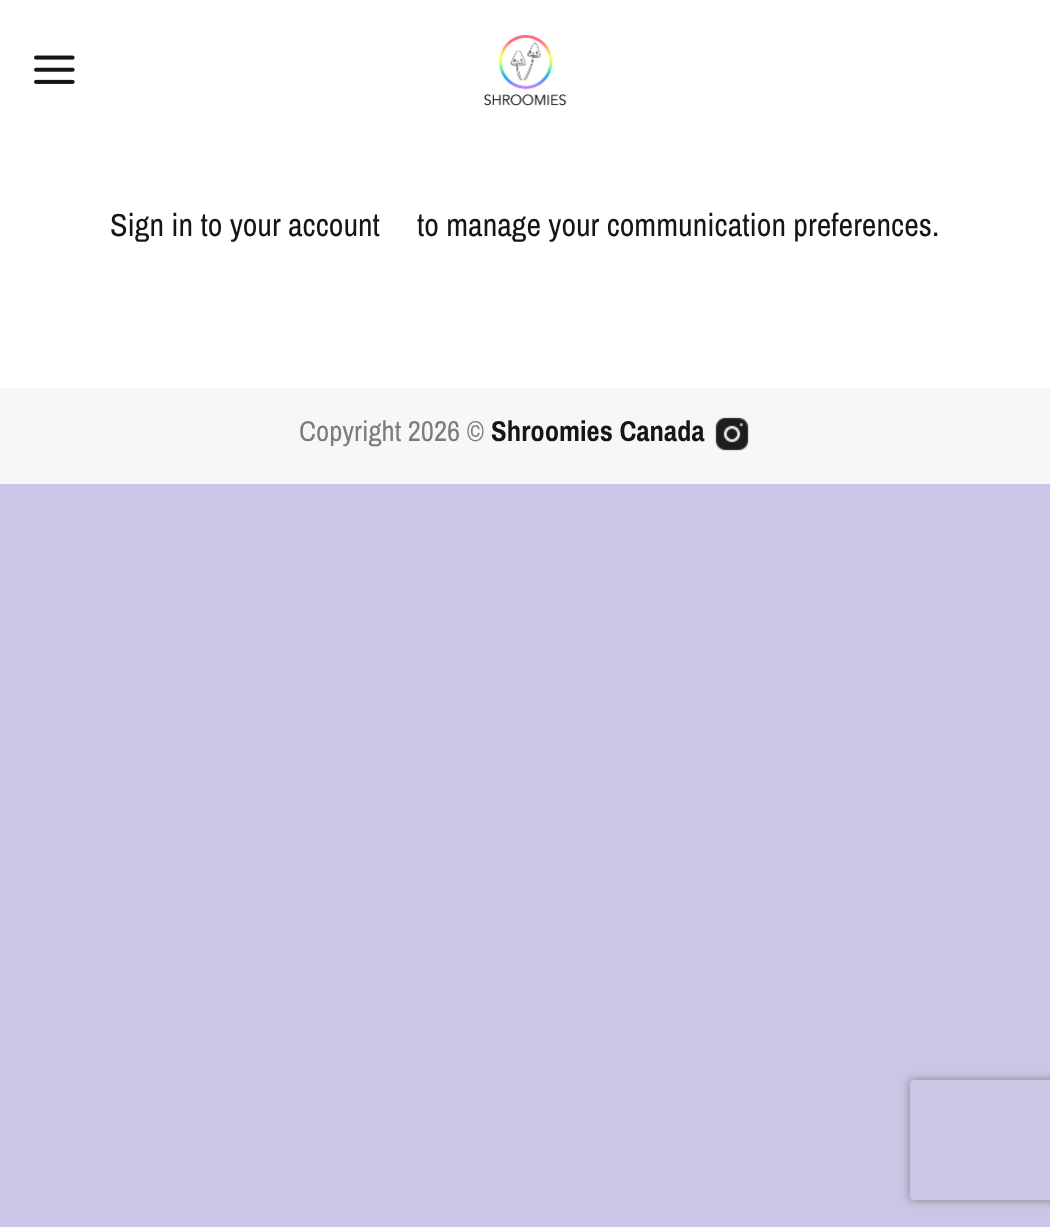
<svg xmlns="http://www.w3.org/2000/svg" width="1050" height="1227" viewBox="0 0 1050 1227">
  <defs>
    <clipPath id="clip1"><path d="M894 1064H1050V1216H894ZM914 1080H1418C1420 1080 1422 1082 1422 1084V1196C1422 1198 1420 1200 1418 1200H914C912 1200 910 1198 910 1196V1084C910 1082 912 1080 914 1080Z" clip-rule="evenodd"/></clipPath>
    <filter id="blur1" x="-50%" y="-200%" width="200%" height="500%"><feGaussianBlur stdDeviation="5"/></filter>
  </defs>
  <rect width="100%" height="100%" fill="#cac6e6"/>
  <rect x="0" y="0" width="1050" height="388" fill="#ffffff"/>
  <image x="34" y="55" width="41" height="29" href="img1.png"/>
  <image x="484" y="34" width="83" height="72" href="img2.png"/>
  <text x="110" y="236" font-family="Archivo Narrow" font-size="32" fill="#161616">Sign in to your account</text>
  <text x="417" y="236" font-family="Archivo Narrow" font-size="32" fill="#161616">to manage your communication preferences.</text>
  <rect x="0" y="388" width="1050" height="96" fill="#f7f7f7"/>
  <text x="299" y="441" font-family="Archivo Narrow" font-size="28.75" fill="#7c7c7c">Copyright 2026 ©</text>
  <text x="491" y="441" font-family="Archivo Narrow" font-size="28.75" font-weight="bold" fill="#161616">Shroomies Canada</text>
  <image x="715" y="417" width="34" height="34" href="img3.png"/>
  <g clip-path="url(#clip1)">
    <rect x="910" y="1080" width="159" height="120" rx="4" fill="#808080" filter="url(#blur1)"/>
  </g>
</svg>
